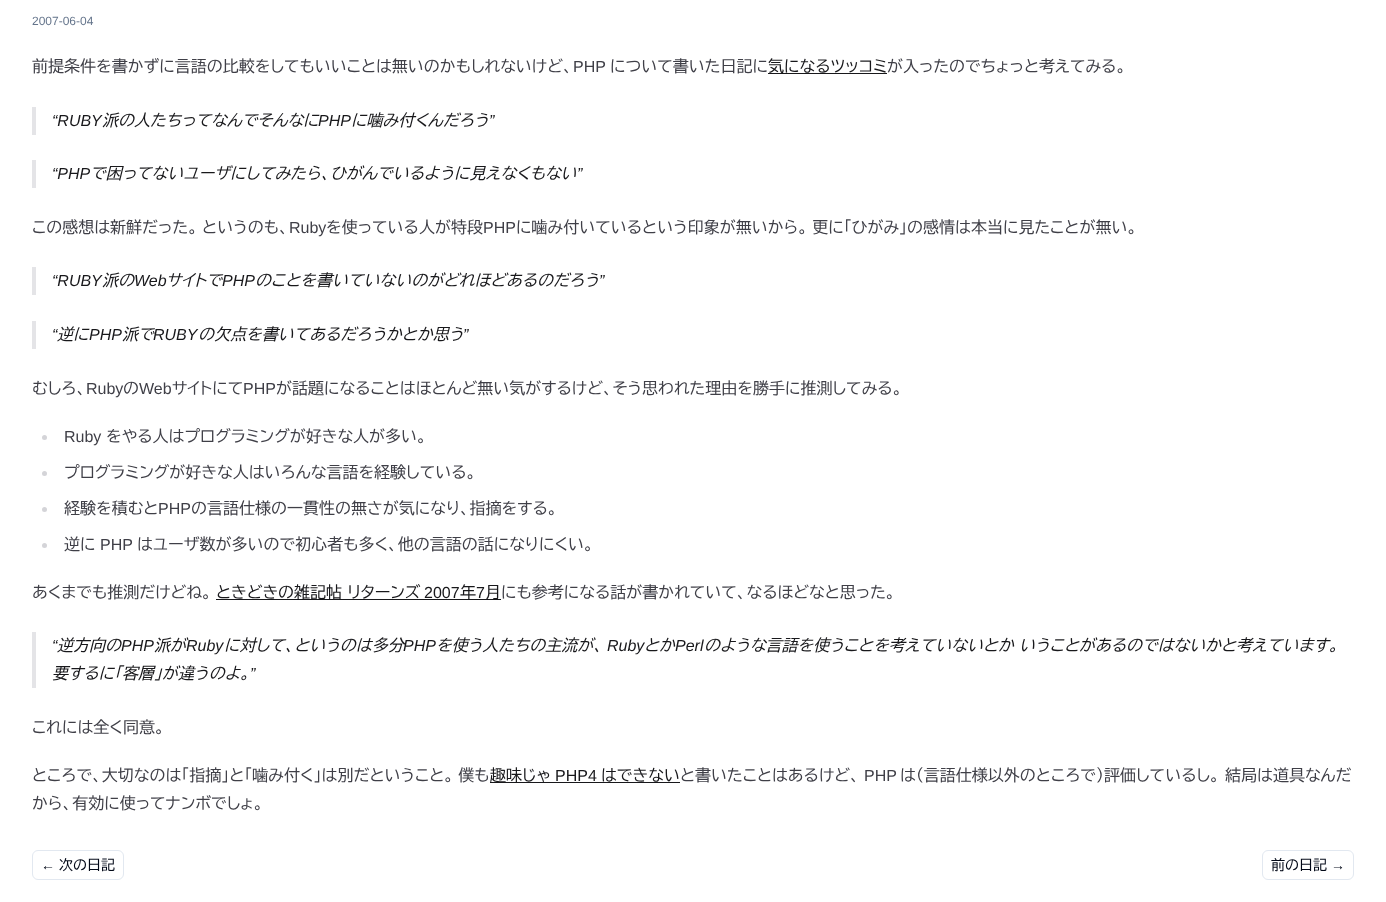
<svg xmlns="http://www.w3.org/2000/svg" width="1386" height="902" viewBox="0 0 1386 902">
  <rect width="100%" height="100%" fill="#ffffff"/>
  <text x="32" y="25" font-family="Liberation Sans" font-size="12" fill="#64748b">2007-06-04</text>
  <text x="32" y="72" font-family="BIZ UDPGothic" font-size="16" fill="#3f3f47">前提条件を書かずに言語の比較をしてもいいことは無いのかもしれないけど、</text>
  <text x="573" y="72" font-family="Liberation Sans" font-size="16" fill="#3f3f47">PHP</text>
  <text x="610" y="72" font-family="BIZ UDPGothic" font-size="16" fill="#3f3f47">について書いた日記に</text>
  <rect x="768" y="73" width="119" height="1" fill="#18181b"/>
  <text x="768" y="72" font-family="BIZ UDPGothic" font-size="16" fill="#18181b">気になるツッコミ</text>
  <text x="887" y="72" font-family="BIZ UDPGothic" font-size="16" fill="#3f3f47">が入ったのでちょっと考えてみる。</text>
  <rect x="32" y="107" width="4" height="28" fill="#e4e4e7"/>
  <text x="52" y="126" font-family="Liberation Sans" font-size="16" font-style="italic" fill="#18181b">“RUBY</text>
  <text x="102" y="126" font-family="BIZ UDPGothic" font-size="16" font-style="italic" fill="#18181b">派の人たちってなんでそんなに</text>
  <text x="318" y="126" font-family="Liberation Sans" font-size="16" font-style="italic" fill="#18181b">PHP</text>
  <text x="351" y="126" font-family="BIZ UDPGothic" font-size="16" font-style="italic" fill="#18181b">に噛み付くんだろう</text>
  <text x="489" y="126" font-family="Liberation Sans" font-size="16" font-style="italic" fill="#18181b">”</text>
  <rect x="32" y="160" width="4" height="28" fill="#e4e4e7"/>
  <text x="52" y="179" font-family="Liberation Sans" font-size="16" font-style="italic" fill="#18181b">“PHP</text>
  <text x="90" y="179" font-family="BIZ UDPGothic" font-size="16" font-style="italic" fill="#18181b">で困ってないユーザにしてみたら、ひがんでいるように見えなくもない</text>
  <text x="577" y="179" font-family="Liberation Sans" font-size="16" font-style="italic" fill="#18181b">”</text>
  <text x="32" y="233" word-spacing="-1" font-family="BIZ UDPGothic" font-size="16" fill="#3f3f47">この感想は新鮮だった。 というのも、</text>
  <text x="289" y="233" font-family="Liberation Sans" font-size="16" fill="#3f3f47">Ruby</text>
  <text x="326" y="233" font-family="BIZ UDPGothic" font-size="16" fill="#3f3f47">を使っている人が特段</text>
  <text x="483" y="233" font-family="Liberation Sans" font-size="16" fill="#3f3f47">PHP</text>
  <text x="516" y="233" word-spacing="-1" font-family="BIZ UDPGothic" font-size="16" fill="#3f3f47">に噛み付いているという印象が無いから。 更に「ひがみ」の感情は本当に見たことが無い。</text>
  <rect x="32" y="267" width="4" height="28" fill="#e4e4e7"/>
  <text x="52" y="286" font-family="Liberation Sans" font-size="16" font-style="italic" fill="#18181b">“RUBY</text>
  <text x="102" y="286" font-family="BIZ UDPGothic" font-size="16" font-style="italic" fill="#18181b">派の</text>
  <text x="134" y="286" font-family="Liberation Sans" font-size="16" font-style="italic" fill="#18181b">Web</text>
  <text x="166" y="286" font-family="BIZ UDPGothic" font-size="16" font-style="italic" fill="#18181b">サイトで</text>
  <text x="222" y="286" font-family="Liberation Sans" font-size="16" font-style="italic" fill="#18181b">PHP</text>
  <text x="255" y="286" font-family="BIZ UDPGothic" font-size="16" font-style="italic" fill="#18181b">のことを書いていないのがどれほどあるのだろう</text>
  <text x="599" y="286" font-family="Liberation Sans" font-size="16" font-style="italic" fill="#18181b">”</text>
  <rect x="32" y="321" width="4" height="28" fill="#e4e4e7"/>
  <text x="52" y="340" font-family="Liberation Sans" font-size="16" font-style="italic" fill="#18181b">“</text>
  <text x="57" y="340" font-family="BIZ UDPGothic" font-size="16" font-style="italic" fill="#18181b">逆に</text>
  <text x="89" y="340" font-family="Liberation Sans" font-size="16" font-style="italic" fill="#18181b">PHP</text>
  <text x="122" y="340" font-family="BIZ UDPGothic" font-size="16" font-style="italic" fill="#18181b">派で</text>
  <text x="153" y="340" font-family="Liberation Sans" font-size="16" font-style="italic" fill="#18181b">RUBY</text>
  <text x="198" y="340" font-family="BIZ UDPGothic" font-size="16" font-style="italic" fill="#18181b">の欠点を書いてあるだろうかとか思う</text>
  <text x="463" y="340" font-family="Liberation Sans" font-size="16" font-style="italic" fill="#18181b">”</text>
  <text x="32" y="394" font-family="BIZ UDPGothic" font-size="16" fill="#3f3f47">むしろ、</text>
  <text x="86" y="394" font-family="Liberation Sans" font-size="16" fill="#3f3f47">Ruby</text>
  <text x="123" y="394" font-family="BIZ UDPGothic" font-size="16" fill="#3f3f47">の</text>
  <text x="139" y="394" font-family="Liberation Sans" font-size="16" fill="#3f3f47">Web</text>
  <text x="172" y="394" font-family="BIZ UDPGothic" font-size="16" fill="#3f3f47">サイトにて</text>
  <text x="243" y="394" font-family="Liberation Sans" font-size="16" fill="#3f3f47">PHP</text>
  <text x="276" y="394" font-family="BIZ UDPGothic" font-size="16" fill="#3f3f47">が話題になることはほとんど無い気がするけど、そう思われた理由を勝手に推測してみる。</text>
  <circle cx="44.5" cy="437.5" r="2.5" fill="#d4d4d8"/>
  <text x="64" y="442" font-family="Liberation Sans" font-size="16" fill="#3f3f47">Ruby</text>
  <text x="106" y="442" font-family="BIZ UDPGothic" font-size="16" fill="#3f3f47">をやる人はプログラミングが好きな人が多い。</text>
  <circle cx="44.5" cy="473.5" r="2.5" fill="#d4d4d8"/>
  <text x="64" y="478" font-family="BIZ UDPGothic" font-size="16" fill="#3f3f47">プログラミングが好きな人はいろんな言語を経験している。</text>
  <circle cx="44.5" cy="509.5" r="2.5" fill="#d4d4d8"/>
  <text x="64" y="514" font-family="BIZ UDPGothic" font-size="16" fill="#3f3f47">経験を積むと</text>
  <text x="158" y="514" font-family="Liberation Sans" font-size="16" fill="#3f3f47">PHP</text>
  <text x="191" y="514" font-family="BIZ UDPGothic" font-size="16" fill="#3f3f47">の言語仕様の一貫性の無さが気になり、指摘をする。</text>
  <circle cx="44.5" cy="545.5" r="2.5" fill="#d4d4d8"/>
  <text x="64" y="550" font-family="BIZ UDPGothic" font-size="16" fill="#3f3f47">逆に</text>
  <text x="100" y="550" font-family="Liberation Sans" font-size="16" fill="#3f3f47">PHP</text>
  <text x="137" y="550" font-family="BIZ UDPGothic" font-size="16" fill="#3f3f47">はユーザ数が多いので初心者も多く、他の言語の話になりにくい。</text>
  <text x="32" y="598" font-family="BIZ UDPGothic" font-size="16" fill="#3f3f47">あくまでも推測だけどね。</text>
  <rect x="216" y="599" width="285" height="1" fill="#18181b"/>
  <text x="216" y="598" font-family="BIZ UDPGothic" font-size="16" fill="#18181b">ときどきの雑記帖 リターンズ</text>
  <text x="424" y="598" font-family="Liberation Sans" font-size="16" fill="#18181b">2007</text>
  <text x="460" y="598" font-family="BIZ UDPGothic" font-size="16" fill="#18181b">年</text>
  <text x="476" y="598" font-family="Liberation Sans" font-size="16" fill="#18181b">7</text>
  <text x="485" y="598" font-family="BIZ UDPGothic" font-size="16" fill="#18181b">月</text>
  <text x="501" y="598" font-family="BIZ UDPGothic" font-size="16" fill="#3f3f47">にも参考になる話が書かれていて、なるほどなと思った。</text>
  <rect x="32" y="632" width="4" height="56" fill="#e4e4e7"/>
  <text x="52" y="651" font-family="Liberation Sans" font-size="16" font-style="italic" fill="#18181b">“</text>
  <text x="57" y="651" font-family="BIZ UDPGothic" font-size="16" font-style="italic" fill="#18181b">逆方向の</text>
  <text x="121" y="651" font-family="Liberation Sans" font-size="16" font-style="italic" fill="#18181b">PHP</text>
  <text x="154" y="651" font-family="BIZ UDPGothic" font-size="16" font-style="italic" fill="#18181b">派が</text>
  <text x="186" y="651" font-family="Liberation Sans" font-size="16" font-style="italic" fill="#18181b">Ruby</text>
  <text x="224" y="651" font-family="BIZ UDPGothic" font-size="16" font-style="italic" fill="#18181b">に対して、というのは多分</text>
  <text x="403" y="651" font-family="Liberation Sans" font-size="16" font-style="italic" fill="#18181b">PHP</text>
  <text x="436" y="651" font-family="BIZ UDPGothic" font-size="16" font-style="italic" fill="#18181b">を使う人たちの主流が、</text>
  <text x="607" y="651" font-family="Liberation Sans" font-size="16" font-style="italic" fill="#18181b">Ruby</text>
  <text x="644" y="651" font-family="BIZ UDPGothic" font-size="16" font-style="italic" fill="#18181b">とか</text>
  <text x="675" y="651" font-family="Liberation Sans" font-size="16" font-style="italic" fill="#18181b">Perl</text>
  <text x="704" y="651" font-family="BIZ UDPGothic" font-size="16" font-style="italic" fill="#18181b">のような言語を使うことを考えていないとか いうことがあるのではないかと考えています。</text>
  <text x="52" y="679" font-family="BIZ UDPGothic" font-size="16" font-style="italic" fill="#18181b">要するに「客層」が違うのよ。</text>
  <text x="250" y="679" font-family="Liberation Sans" font-size="16" font-style="italic" fill="#18181b">”</text>
  <text x="32" y="733" font-family="BIZ UDPGothic" font-size="16" fill="#3f3f47">これには全く同意。</text>
  <text x="32" y="781" word-spacing="-1" font-family="BIZ UDPGothic" font-size="16" fill="#3f3f47">ところで、大切なのは「指摘」と「噛み付く」は別だということ。 僕も</text>
  <rect x="490" y="782" width="190" height="1" fill="#18181b"/>
  <text x="490" y="781" font-family="BIZ UDPGothic" font-size="16" fill="#18181b">趣味じゃ</text>
  <text x="555" y="781" font-family="Liberation Sans" font-size="16" fill="#18181b">PHP4</text>
  <text x="601" y="781" font-family="BIZ UDPGothic" font-size="16" fill="#18181b">はできない</text>
  <text x="680" y="781" font-family="BIZ UDPGothic" font-size="16" fill="#3f3f47">と書いたことはあるけど、</text>
  <text x="864" y="781" font-family="Liberation Sans" font-size="16" fill="#3f3f47">PHP</text>
  <text x="900" y="781" font-family="BIZ UDPGothic" font-size="16" fill="#3f3f47">は（言語仕様以外のところで）評価しているし。 結局は道具なんだ</text>
  <text x="32" y="809" font-family="BIZ UDPGothic" font-size="16" fill="#3f3f47">から、有効に使ってナンボでしょ。</text>
  <rect x="32.5" y="850.5" width="91" height="29" rx="5.5" fill="none" stroke="#e2e8f0"/>
  <text x="41" y="870" font-family="Liberation Sans" font-size="14" fill="#020817">←</text>
  <text x="59" y="870" font-family="BIZ UDPGothic" font-size="14" fill="#020817">次の日記</text>
  <rect x="1262.5" y="850.5" width="91" height="29" rx="5.5" fill="none" stroke="#e2e8f0"/>
  <text x="1271" y="870" font-family="BIZ UDPGothic" font-size="14" fill="#020817">前の日記</text>
  <text x="1331" y="870" font-family="Liberation Sans" font-size="14" fill="#020817">→</text>
</svg>
